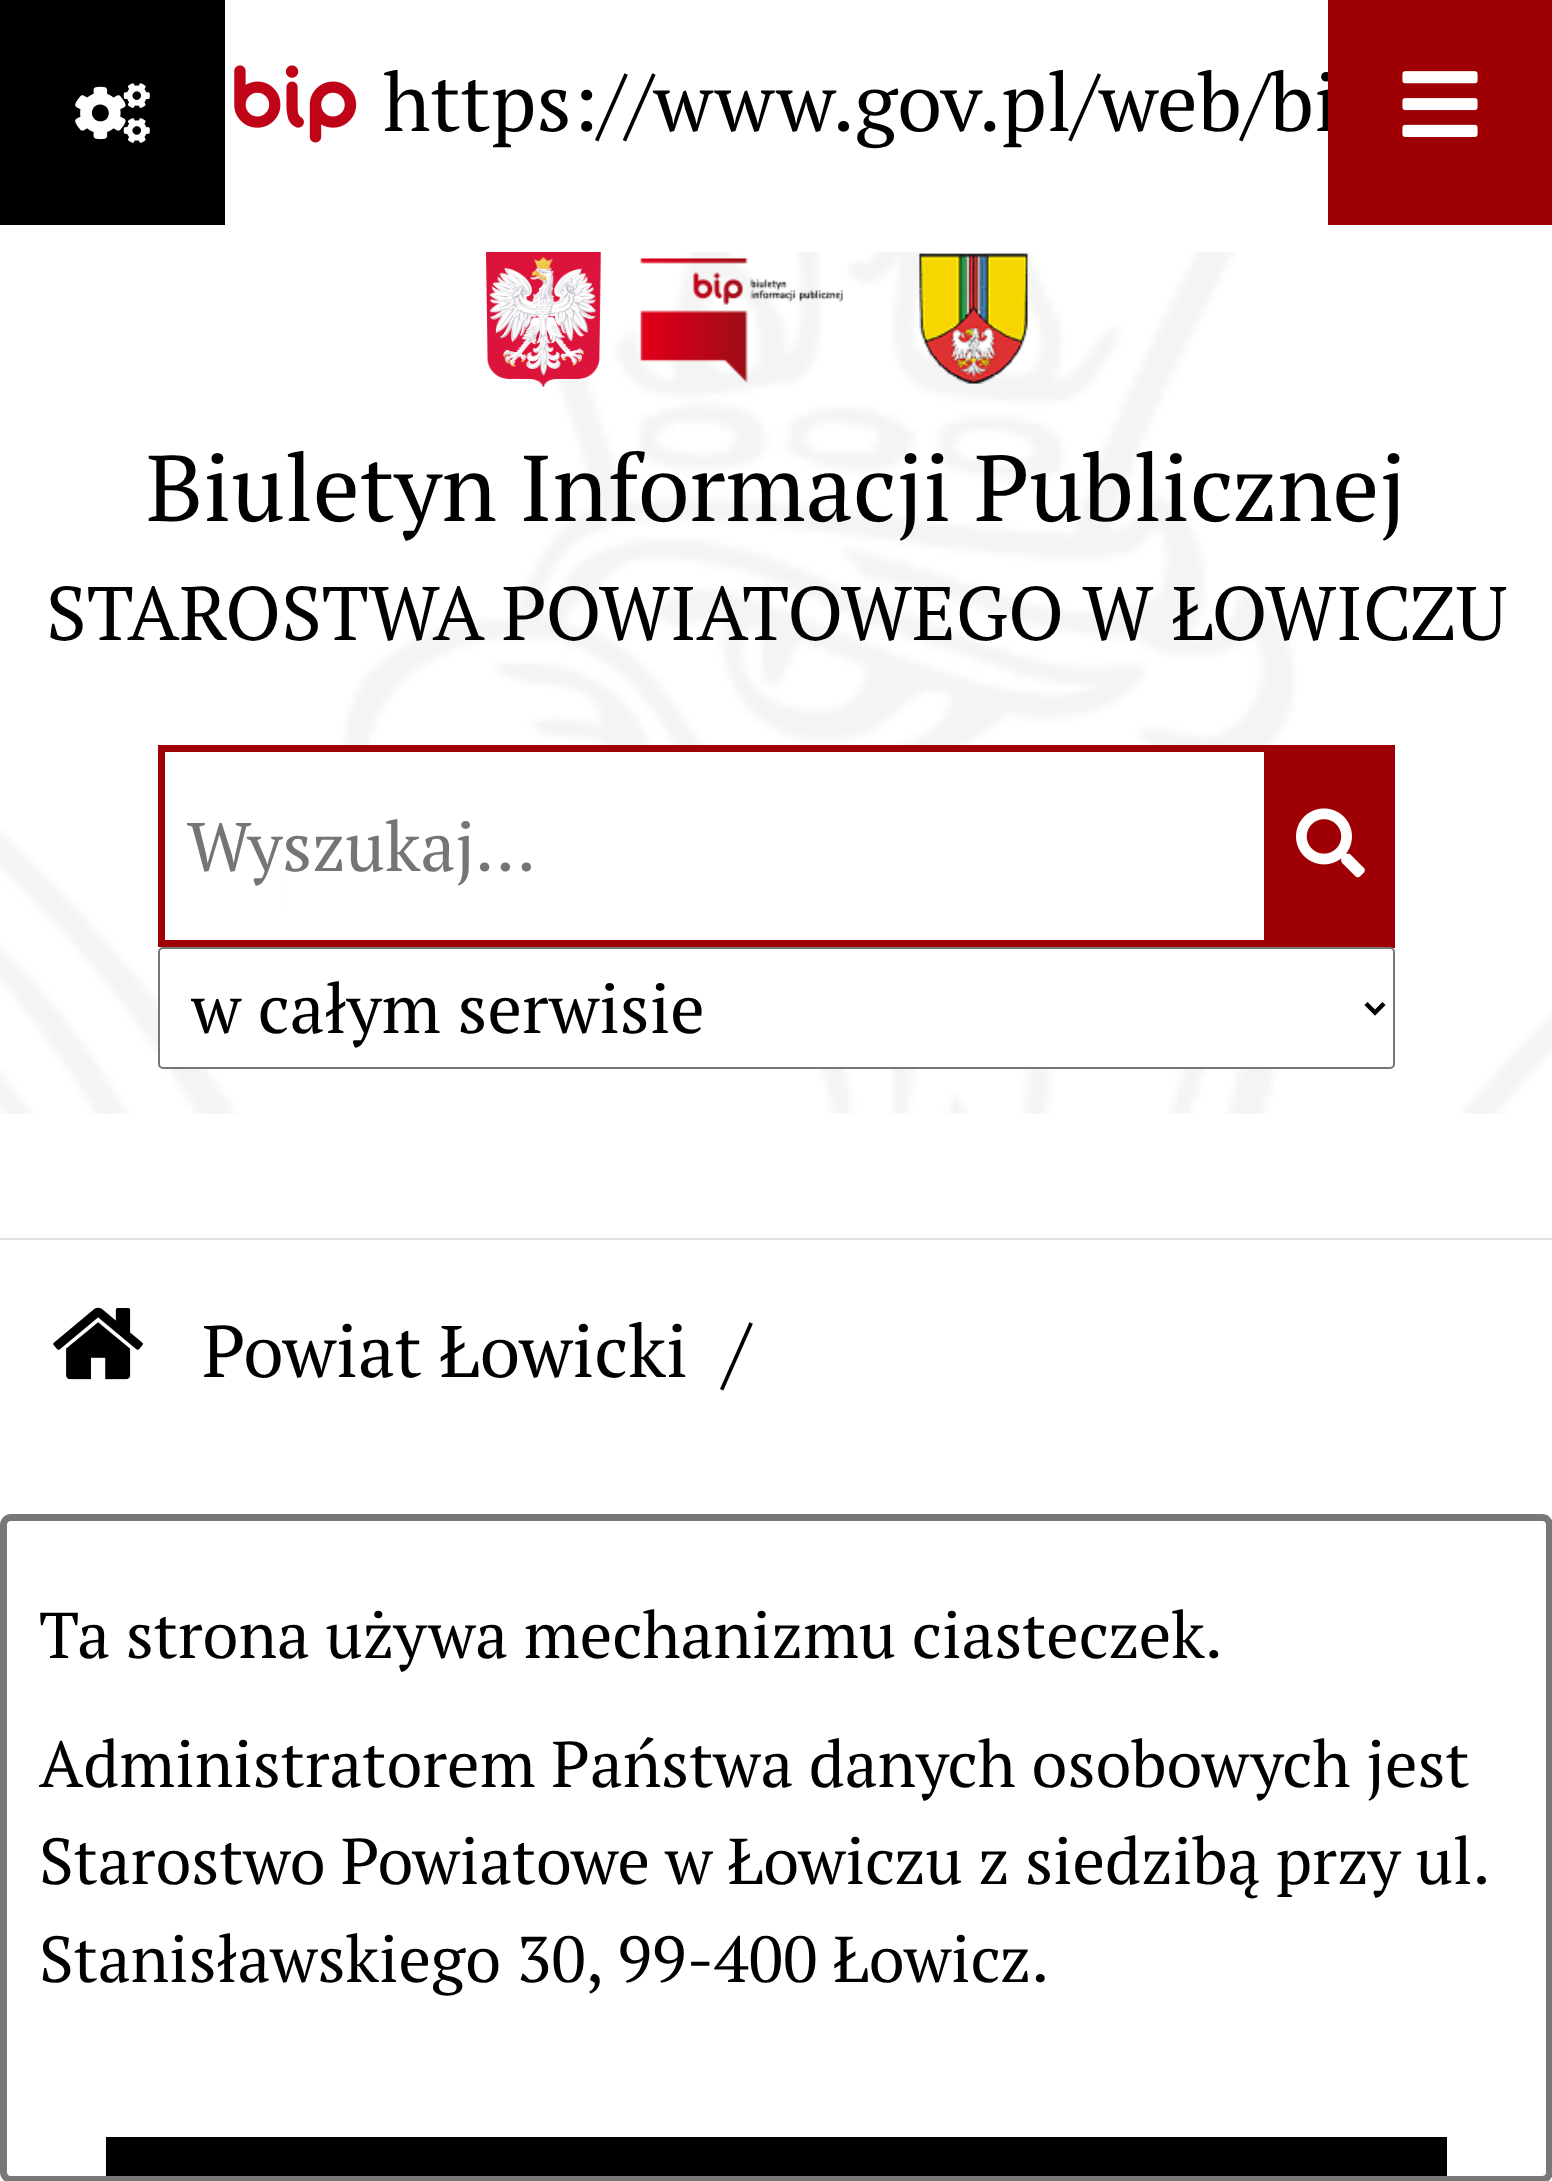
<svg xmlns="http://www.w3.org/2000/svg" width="1552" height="2181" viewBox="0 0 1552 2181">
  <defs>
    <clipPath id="clip1"><rect x="191" y="961" width="1143" height="94"/></clipPath>
  </defs>
  <rect width="100%" height="100%" fill="#ffffff"/>
  <rect x="0" y="1238" width="1552" height="2" fill="#e1e1e1"/>
  <rect x="0" y="0" width="225" height="225" fill="#000000"/>
  <image x="75" y="83" width="75" height="60" href="img1.png"/>
  <text x="383" y="131" font-family="PT Serif" font-size="81" fill="#000000">https://www.gov.pl/web/bi</text>
  <rect x="1328" y="0" width="224" height="225" fill="#9e0005"/>
  <image x="1402" y="71" width="76" height="66" href="img2.png"/>
  <image x="0" y="252" width="1552" height="862" href="img3.png"/>
  <image x="234" y="65" width="123" height="78" href="img4.png"/>
  <image x="486" y="252" width="115" height="135" href="img5.png"/>
  <image x="640" y="258" width="203" height="125" href="img6.png"/>
  <image x="919" y="253" width="109" height="131" href="img7.png"/>
  <text x="146" y="521" font-family="PT Serif" font-size="93.25" fill="#000000">Biuletyn Informacji Publicznej</text>
  <text x="46" y="640" font-family="PT Serif" font-size="75.8" fill="#000000">STAROSTWA POWIATOWEGO W ŁOWICZU</text>
  <rect x="288" y="752" width="976" height="188" fill="#ffffff"/>
  <rect x="161.5" y="748.5" width="1106" height="195" fill="none" stroke="#9e0005" stroke-width="7"/>
  <text x="187" y="871" font-family="PT Serif" font-size="68.75" fill="#757575">Wyszukaj...</text>
  <rect x="1271" y="745" width="124" height="203" fill="#9e0005"/>
  <image x="1296" y="808" width="69" height="70" href="img8.png"/>
  <rect x="159" y="948" width="1235" height="120" rx="4" fill="#ffffff" stroke="#767676" stroke-width="2"/>
  <path d="M1366 1003.5L1375 1012.5L1384 1003.5" fill="none" stroke="#000000" stroke-width="4.5"/>
  <g clip-path="url(#clip1)">
    <text x="191" y="1033" font-family="PT Serif" font-size="68.75" fill="#000000">w całym serwisie</text>
  </g>
  <image x="53" y="1307" width="90" height="73" href="img9.png"/>
  <text x="202" y="1377" font-family="PT Serif" font-size="73" fill="#000000">Powiat Łowicki</text>
  <text x="723" y="1380" font-family="PT Serif" font-size="81" fill="#000000">/</text>
  <rect x="3.5" y="1517.5" width="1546" height="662" rx="7.5" fill="none" stroke="#787878" stroke-width="7"/>
  <text x="39" y="1658" font-family="PT Serif" font-size="64.8" fill="#000000">Ta strona używa mechanizmu ciasteczek.</text>
  <text x="39" y="1787" font-family="PT Serif" font-size="64.8" fill="#000000">Administratorem Państwa danych osobowych jest</text>
  <text x="39" y="1884" word-spacing="-0.5" font-family="PT Serif" font-size="64.8" fill="#000000">Starostwo Powiatowe w Łowiczu z siedzibą przy ul.</text>
  <text x="39" y="1982" font-family="PT Serif" font-size="64.8" fill="#000000">Stanisławskiego 30, 99-400 Łowicz.</text>
  <rect x="106" y="2137" width="1341" height="39" fill="#000000"/>
</svg>
